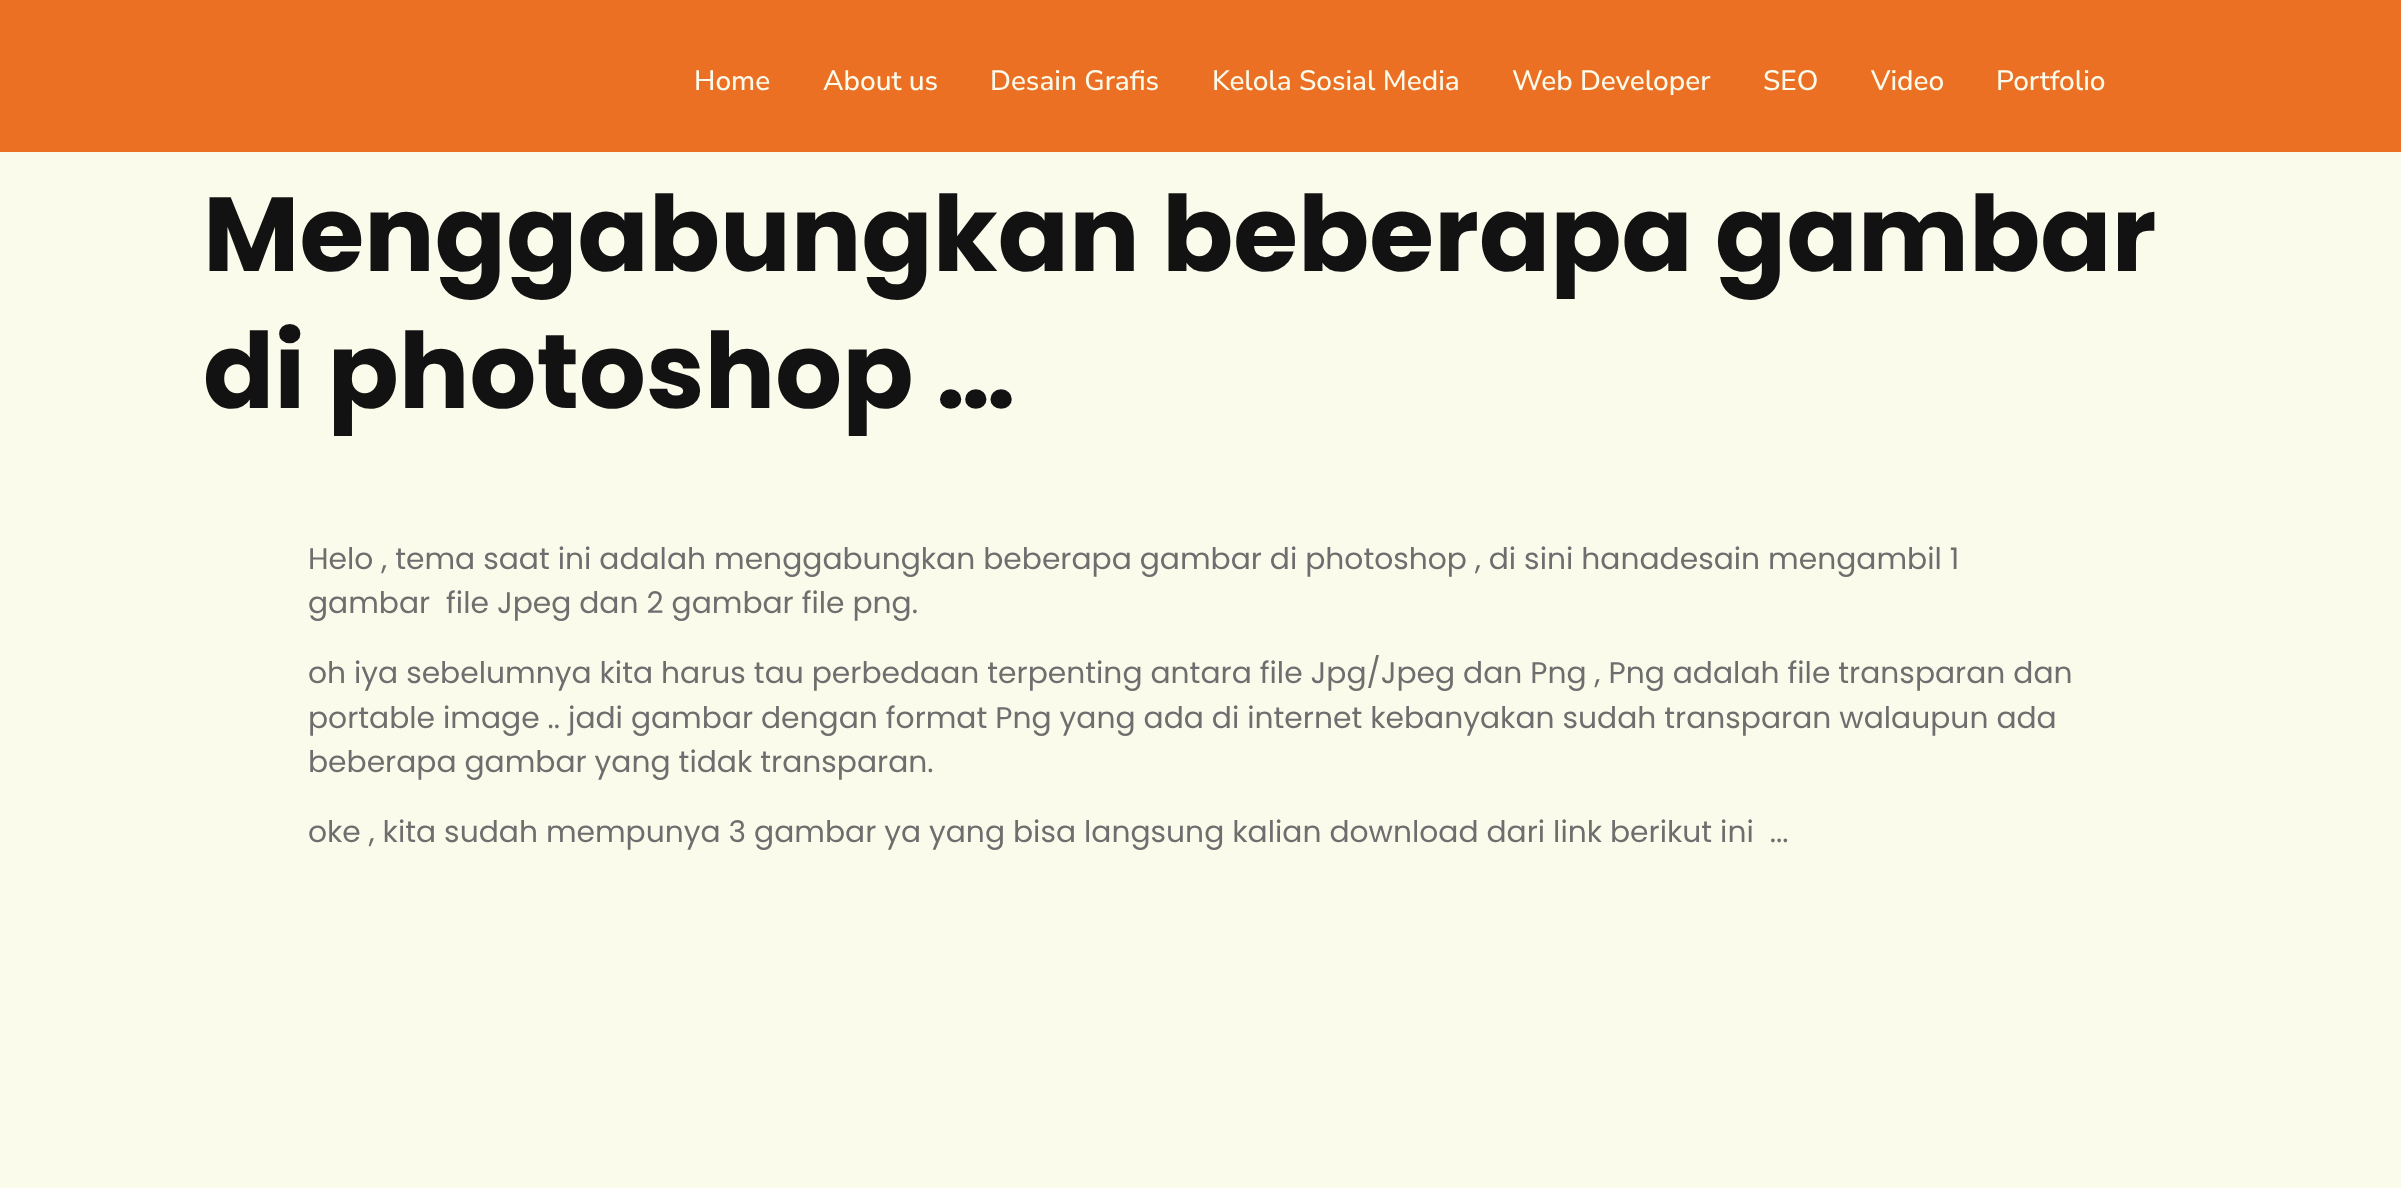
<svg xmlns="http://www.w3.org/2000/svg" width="2401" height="1188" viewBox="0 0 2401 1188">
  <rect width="100%" height="100%" fill="#fbfbec"/>
  <rect x="0" y="0" width="2401" height="152" fill="#eb7024"/>
  <text x="694" y="90" font-family="Nunito Sans" font-size="28" font-weight="500" fill="#fbfbec">Home</text>
  <text x="823" y="90" font-family="Nunito Sans" font-size="28" font-weight="500" fill="#fbfbec">About us</text>
  <text x="990" y="90" font-family="Nunito Sans" font-size="28" font-weight="500" fill="#fbfbec">Desain Grafis</text>
  <text x="1212" y="90" font-family="Nunito Sans" font-size="28" font-weight="500" fill="#fbfbec">Kelola Sosial Media</text>
  <text x="1512" y="90" font-family="Nunito Sans" font-size="28" font-weight="500" fill="#fbfbec">Web Developer</text>
  <text x="1763" y="90" font-family="Nunito Sans" font-size="28" font-weight="500" fill="#fbfbec">SEO</text>
  <text x="1871" y="90" font-family="Nunito Sans" font-size="28" font-weight="500" fill="#fbfbec">Video</text>
  <text x="1996" y="90" font-family="Nunito Sans" font-size="28" font-weight="500" fill="#fbfbec">Portfolio</text>
  <text x="203" y="271" font-family="Poppins" font-size="105" font-weight="bold" fill="#121212">Menggabungkan beberapa gambar</text>
  <text x="203" y="408" font-family="Poppins" font-size="105" font-weight="bold" fill="#121212">di photoshop …</text>
  <text x="308" y="569" font-family="Poppins" font-size="29.75" fill="#6e6e6e">Helo , tema saat ini adalah menggabungkan beberapa gambar di photoshop , di sini hanadesain mengambil 1</text>
  <text x="308" y="613" font-family="Poppins" font-size="29.75" fill="#6e6e6e" xml:space="preserve">gambar  file Jpeg dan 2 gambar file png.</text>
  <text x="308" y="683" font-family="Poppins" font-size="29.75" fill="#6e6e6e">oh iya sebelumnya kita harus tau perbedaan terpenting antara file Jpg/Jpeg dan Png , Png adalah file transparan dan</text>
  <text x="308" y="728" font-family="Poppins" font-size="29.75" fill="#6e6e6e">portable image .. jadi gambar dengan format Png yang ada di internet kebanyakan sudah transparan walaupun ada</text>
  <text x="308" y="772" font-family="Poppins" font-size="29.75" fill="#6e6e6e">beberapa gambar yang tidak transparan.</text>
  <text x="308" y="842" font-family="Poppins" font-size="29.75" fill="#6e6e6e" xml:space="preserve">oke , kita sudah mempunya 3 gambar ya yang bisa langsung kalian download dari link berikut ini  ...</text>
</svg>
